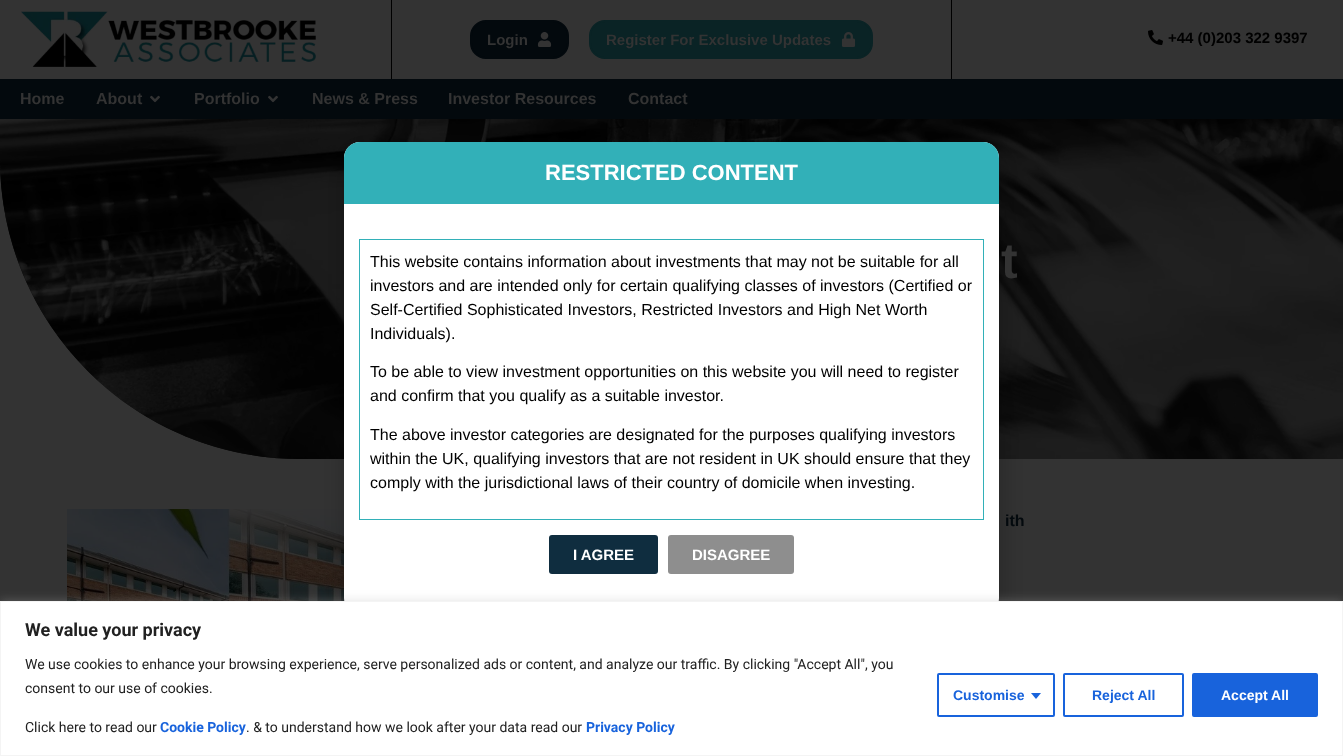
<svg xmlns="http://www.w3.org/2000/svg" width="1343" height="756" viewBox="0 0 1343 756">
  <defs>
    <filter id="blur1" x="-50%" y="-200%" width="200%" height="500%"><feGaussianBlur stdDeviation="11.5"/></filter>
    <filter id="blur2" x="-50%" y="-200%" width="200%" height="500%"><feGaussianBlur stdDeviation="5"/></filter>
  </defs>
  <rect width="100%" height="100%" fill="#333333"/>
  <image x="21" y="11" width="295" height="56" href="img1.png"/>
  <rect x="951" y="0" width="1" height="79" fill="#000000"/>
  <rect x="391" y="0" width="1" height="79" fill="#000000"/>
  <rect x="471" y="21" width="97" height="37" rx="15" fill="#03090d" stroke="#03090d" stroke-width="2"/>
  <text x="487" y="45" font-family="Liberation Sans" font-size="15" font-weight="bold" fill="#333333">Login</text>
  <image x="537" y="32" width="15" height="15" href="img2.png"/>
  <rect x="590" y="21" width="282" height="37" rx="15" fill="#0a2325" stroke="#0a2325" stroke-width="2"/>
  <text x="606" y="45" font-family="Liberation Sans" font-size="15" font-weight="bold" fill="#333333">Register For Exclusive Updates</text>
  <image x="841" y="32" width="15" height="15" href="img3.png"/>
  <image x="1148" y="30" width="15" height="15" href="img4.png"/>
  <text x="1168" y="43" font-family="Liberation Sans" font-size="15" font-weight="bold" fill="#000000">+44 (0)203 322 9397</text>
  <rect x="0" y="79" width="1343" height="40" fill="#03090d"/>
  <text x="20" y="104" font-family="Liberation Sans" font-size="16" font-weight="bold" fill="#333333">Home</text>
  <text x="96" y="104" font-family="Liberation Sans" font-size="16" font-weight="bold" fill="#333333">About</text>
  <image x="150" y="95" width="10" height="8" href="img5.png"/>
  <text x="194" y="104" font-family="Liberation Sans" font-size="16" font-weight="bold" fill="#333333">Portfolio</text>
  <image x="268" y="95" width="10" height="8" href="img5.png"/>
  <text x="312" y="104" font-family="Liberation Sans" font-size="16" font-weight="bold" fill="#333333">News &amp; Press</text>
  <text x="448" y="104" font-family="Liberation Sans" font-size="16" font-weight="bold" fill="#333333">Investor Resources</text>
  <text x="628" y="104" font-family="Liberation Sans" font-size="16" font-weight="bold" fill="#333333">Contact</text>
  <path d="M0 119H1343V459H300C134.5 459 0 324.5 0 159Z" fill="#0b0b0b"/>
  <image x="0" y="119" width="1343" height="340" href="img6.png"/>
  <path d="M0 119H1343V459H300C134.5 459 0 324.5 0 159Z" fill="#000000" fill-opacity="0.3"/>
  <image x="67" y="509" width="278" height="92" href="img7.png"/>
  <rect x="343" y="147" width="661" height="478" rx="19" fill="#000000" fill-opacity="0.2" filter="url(#blur1)"/>
  <rect x="344" y="142" width="655" height="472" rx="16" fill="#ffffff"/>
  <path d="M360 142H983C992 142 999 149 999 158V204H344V158C344 149 351 142 360 142Z" fill="#32b0b8"/>
  <text x="545" y="180" font-family="Liberation Sans" font-size="22" font-weight="bold" fill="#ffffff">RESTRICTED CONTENT</text>
  <rect x="359.5" y="239.5" width="624" height="280" fill="none" stroke="#32b0b8"/>
  <text x="370" y="267" font-family="Liberation Sans" font-size="16" fill="#000000">This website contains information about investments that may not be suitable for all</text>
  <text x="370" y="291" font-family="Liberation Sans" font-size="16" fill="#000000">investors and are intended only for certain qualifying classes of investors (Certified or</text>
  <text x="370" y="315" font-family="Liberation Sans" font-size="16" fill="#000000">Self-Certified Sophisticated Investors, Restricted Investors and High Net Worth</text>
  <text x="370" y="339" font-family="Liberation Sans" font-size="16" fill="#000000">Individuals).</text>
  <text x="370" y="377" font-family="Liberation Sans" font-size="16" fill="#000000">To be able to view investment opportunities on this website you will need to register</text>
  <text x="370" y="401" font-family="Liberation Sans" font-size="16" fill="#000000">and confirm that you qualify as a suitable investor.</text>
  <text x="370" y="440" font-family="Liberation Sans" font-size="16" fill="#000000">The above investor categories are designated for the purposes qualifying investors</text>
  <text x="370" y="464" font-family="Liberation Sans" font-size="16" fill="#000000">within the UK, qualifying investors that are not resident in UK should ensure that they</text>
  <text x="370" y="488" font-family="Liberation Sans" font-size="16" fill="#000000">comply with the jurisdictional laws of their country of domicile when investing.</text>
  <rect x="549" y="535" width="109" height="39" rx="3" fill="#0f2d3f"/>
  <text x="573" y="560" font-family="Liberation Sans" font-size="15" font-weight="bold" fill="#ffffff">I AGREE</text>
  <rect x="668" y="535" width="126" height="39" rx="3" fill="#8e8e8e"/>
  <text x="692" y="560" font-family="Liberation Sans" font-size="15" font-weight="bold" fill="#ffffff">DISAGREE</text>
  <text x="1001" y="278" font-family="Liberation Sans" font-size="50" font-weight="bold" fill="#333333">t</text>
  <text x="1005" y="526" font-family="Liberation Sans" font-size="16" font-weight="bold" fill="#03090d">ith</text>
  <rect x="0" y="600" width="1343" height="155" fill="#acabab" fill-opacity="0.3" filter="url(#blur2)"/>
  <rect x="0.5" y="601.5" width="1342" height="154" fill="#ffffff" stroke="#f4f4f4"/>
  <text x="25" y="636" font-family="Roboto" font-size="18" font-weight="bold" fill="#212121">We value your privacy</text>
  <text x="25" y="669" font-family="Roboto" font-size="14" fill="#212121">We use cookies to enhance your browsing experience, serve personalized ads or content, and analyze our traffic. By clicking "Accept All", you</text>
  <text x="25" y="693" font-family="Roboto" font-size="14" fill="#212121">consent to our use of cookies.</text>
  <text x="25" y="732" font-family="Roboto" font-size="14" fill="#212121">Click here to read our</text>
  <text x="160" y="732" font-family="Roboto" font-size="14" font-weight="bold" fill="#1863dc">Cookie Policy</text>
  <text x="246" y="732" font-family="Roboto" font-size="14" fill="#212121">. &amp; to understand how we look after your data read our</text>
  <text x="586" y="732" font-family="Roboto" font-size="14" font-weight="bold" fill="#1863dc">Privacy Policy</text>
  <rect x="938" y="674" width="116" height="42" rx="1" fill="none" stroke="#1863dc" stroke-width="2"/>
  <text x="953" y="700" font-family="Liberation Sans" font-size="14" font-weight="bold" fill="#1863dc">Customise</text>
  <path d="M1031 693H1041L1036 699Z" fill="#1863dc"/>
  <rect x="1064" y="674" width="119" height="42" rx="1" fill="none" stroke="#1863dc" stroke-width="2"/>
  <text x="1092" y="700" font-family="Liberation Sans" font-size="14" font-weight="bold" fill="#1863dc">Reject All</text>
  <rect x="1193" y="674" width="124" height="42" rx="1" fill="#1863dc" stroke="#1863dc" stroke-width="2"/>
  <text x="1221" y="700" font-family="Liberation Sans" font-size="14" font-weight="bold" fill="#ffffff">Accept All</text>
</svg>
